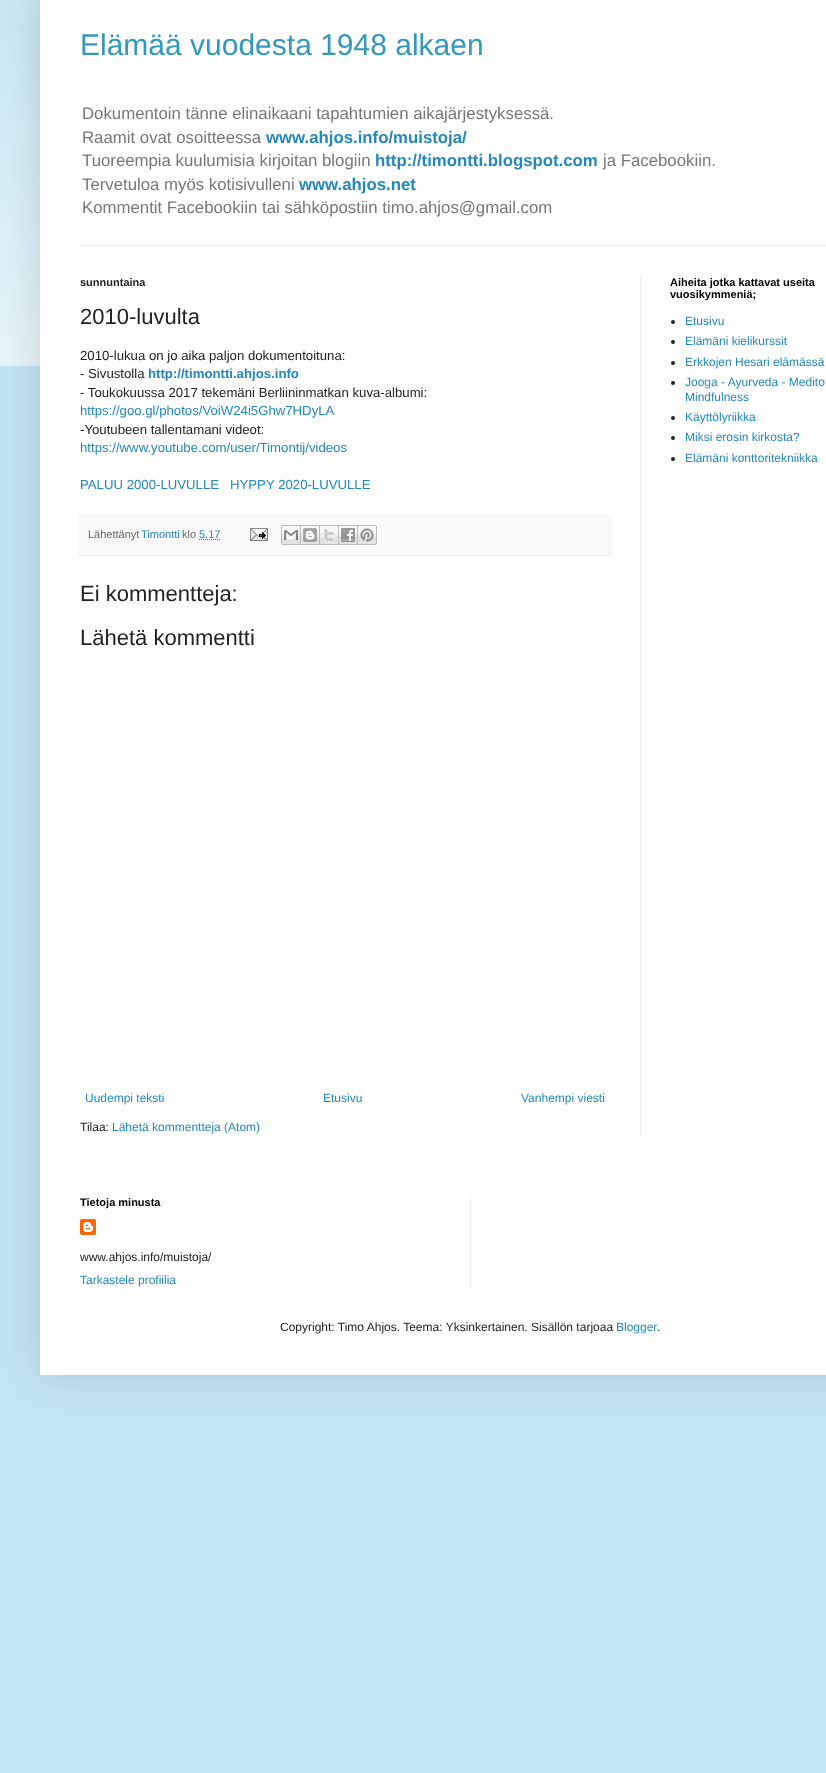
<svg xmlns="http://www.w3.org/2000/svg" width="826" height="1773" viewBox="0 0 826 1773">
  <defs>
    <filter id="blur1" x="-50%" y="-200%" width="200%" height="500%"><feGaussianBlur stdDeviation="20"/></filter>
  </defs>
  <rect width="100%" height="100%" fill="#c2e5f2"/>
  <image x="0" y="0" width="40" height="366" href="img1.png"/>
  <rect x="40" y="-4" width="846" height="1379" fill="#000000" fill-opacity="0.15" filter="url(#blur1)"/>
  <rect x="40" y="0" width="786" height="1375" fill="#ffffff"/>
  <text x="80" y="55" font-family="Liberation Sans" font-size="30" fill="#3399bb">Elämää vuodesta 1948 alkaen</text>
  <text x="82" y="119" font-family="Liberation Sans" font-size="16.8" fill="#777777">Dokumentoin tänne elinaikaani tapahtumien aikajärjestyksessä.</text>
  <text x="82" y="143" font-family="Liberation Sans" font-size="16.8" fill="#777777">Raamit ovat osoitteessa</text>
  <text x="266" y="143" font-family="Liberation Sans" font-size="16.8" font-weight="bold" fill="#2288bb">www.ahjos.info/muistoja/</text>
  <text x="82" y="166" font-family="Liberation Sans" font-size="16.8" fill="#777777">Tuoreempia kuulumisia kirjoitan blogiin</text>
  <text x="375" y="166" font-family="Liberation Sans" font-size="16.8" font-weight="bold" fill="#2288bb">http://timontti.blogspot.com</text>
  <text x="603" y="166" font-family="Liberation Sans" font-size="16.8" fill="#777777">ja Facebookiin.</text>
  <text x="82" y="190" font-family="Liberation Sans" font-size="16.8" fill="#777777">Tervetuloa myös kotisivulleni</text>
  <text x="299" y="190" font-family="Liberation Sans" font-size="16.8" font-weight="bold" fill="#2288bb">www.ahjos.net</text>
  <text x="82" y="213" font-family="Liberation Sans" font-size="16.8" fill="#777777">Kommentit Facebookiin</text>
  <text x="262" y="213" font-family="Liberation Sans" font-size="16.8" fill="#777777">tai sähköpostiin timo.ahjos@gmail.com</text>
  <rect x="80" y="245" width="746" height="1" fill="#eeeeee"/>
  <rect x="640" y="276" width="1" height="860" fill="#eeeeee"/>
  <text x="80" y="286" font-family="Liberation Sans" font-size="11" font-weight="bold" fill="#222222">sunnuntaina</text>
  <text x="80" y="324" font-family="Liberation Sans" font-size="22" fill="#222222">2010-luvulta</text>
  <text x="80" y="360" font-family="Liberation Sans" font-size="13.2" fill="#222222">2010-lukua on jo aika paljon dokumentoituna:</text>
  <text x="80" y="378" font-family="Liberation Sans" font-size="13.2" fill="#222222">- Sivustolla</text>
  <text x="148" y="378" font-family="Liberation Sans" font-size="13.2" font-weight="bold" fill="#2288bb">http://timontti.ahjos.info</text>
  <text x="80" y="397" font-family="Liberation Sans" font-size="13.2" fill="#222222">- Toukokuussa 2017 tekemäni Berliininmatkan kuva-albumi:</text>
  <text x="80" y="415" font-family="Liberation Sans" font-size="13.2" fill="#2288bb">https://goo.gl/photos/VoiW24i5Ghw7HDyLA</text>
  <text x="80" y="434" font-family="Liberation Sans" font-size="13.2" fill="#222222">-Youtubeen tallentamani videot:</text>
  <text x="80" y="452" font-family="Liberation Sans" font-size="13.2" fill="#2288bb">https://www.youtube.com/user/Timontij/videos</text>
  <text x="80" y="489" font-family="Liberation Sans" font-size="13.2" fill="#2288bb">PALUU 2000-LUVULLE</text>
  <text x="230" y="489" font-family="Liberation Sans" font-size="13.2" fill="#2288bb">HYPPY 2020-LUVULLE</text>
  <rect x="78" y="515" width="534" height="40" fill="#f9f9f9"/>
  <rect x="78" y="555" width="534" height="1" fill="#eeeeee"/>
  <text x="88" y="538" font-family="Liberation Sans" font-size="11" fill="#666666">Lähettänyt</text>
  <text x="141" y="538" font-family="Liberation Sans" font-size="11" fill="#2288bb">Timontti</text>
  <text x="182" y="538" font-family="Liberation Sans" font-size="11" fill="#666666">klo</text>
  <text x="199" y="538" font-family="Liberation Sans" font-size="11" fill="#2288bb">5.17</text>
  <path d="M199 539.5H220" fill="none" stroke="#2288bb" stroke-dasharray="1 1"/>
  <image x="250" y="528" width="18" height="13" href="img2.png"/>
  <image x="281" y="525" width="20" height="20" href="img3.png"/>
  <image x="301" y="525" width="19" height="20" href="img4.png"/>
  <image x="320" y="525" width="19" height="20" href="img5.png"/>
  <image x="339" y="525" width="19" height="20" href="img6.png"/>
  <image x="358" y="525" width="19" height="20" href="img7.png"/>
  <text x="80" y="601" font-family="Liberation Sans" font-size="22" fill="#222222">Ei kommentteja:</text>
  <text x="80" y="645" font-family="Liberation Sans" font-size="22" fill="#222222">Lähetä kommentti</text>
  <text x="85" y="1102" font-family="Liberation Sans" font-size="12" fill="#2288bb">Uudempi teksti</text>
  <text x="323" y="1102" font-family="Liberation Sans" font-size="12" fill="#2288bb">Etusivu</text>
  <text x="521" y="1102" font-family="Liberation Sans" font-size="12" fill="#2288bb">Vanhempi viesti</text>
  <text x="80" y="1131" font-family="Liberation Sans" font-size="12" fill="#222222">Tilaa:</text>
  <text x="112" y="1131" font-family="Liberation Sans" font-size="12" fill="#2288bb">Lähetä kommentteja (Atom)</text>
  <text x="670" y="286" font-family="Liberation Sans" font-size="11" font-weight="bold" fill="#000000">Aiheita jotka kattavat useita</text>
  <text x="670" y="298" font-family="Liberation Sans" font-size="11" font-weight="bold" fill="#000000">vuosikymmeniä;</text>
  <circle cx="673" cy="322" r="2" fill="#222222"/>
  <text x="685" y="325" font-family="Liberation Sans" font-size="12" fill="#2288bb">Etusivu</text>
  <circle cx="673" cy="342" r="2" fill="#222222"/>
  <text x="685" y="345" font-family="Liberation Sans" font-size="12" fill="#2288bb">Elämäni kielikurssit</text>
  <circle cx="673" cy="363" r="2" fill="#222222"/>
  <text x="685" y="366" font-family="Liberation Sans" font-size="12" fill="#2288bb">Erkkojen Hesari elämässä</text>
  <circle cx="673" cy="383" r="2" fill="#222222"/>
  <text x="685" y="386" font-family="Liberation Sans" font-size="12" fill="#2288bb">Jooga - Ayurveda - Medito</text>
  <text x="685" y="401" font-family="Liberation Sans" font-size="12" fill="#2288bb">Mindfulness</text>
  <circle cx="673" cy="418" r="2" fill="#222222"/>
  <text x="685" y="421" font-family="Liberation Sans" font-size="12" fill="#2288bb">Käyttölyriikka</text>
  <circle cx="673" cy="438" r="2" fill="#222222"/>
  <text x="685" y="441" font-family="Liberation Sans" font-size="12" fill="#2288bb">Miksi erosin kirkosta?</text>
  <circle cx="673" cy="459" r="2" fill="#222222"/>
  <text x="685" y="462" font-family="Liberation Sans" font-size="12" fill="#2288bb">Elämäni konttoritekniikka</text>
  <text x="80" y="1206" font-family="Liberation Sans" font-size="11" font-weight="bold" fill="#000000">Tietoja minusta</text>
  <image x="80" y="1219" width="16" height="16" href="img8.png"/>
  <text x="80" y="1261" font-family="Liberation Sans" font-size="12" fill="#222222">www.ahjos.info/muistoja/</text>
  <text x="80" y="1284" font-family="Liberation Sans" font-size="12" fill="#2288bb">Tarkastele profiilia</text>
  <rect x="470" y="1196" width="1" height="93" fill="#eeeeee"/>
  <text x="280" y="1331" font-family="Liberation Sans" font-size="12" fill="#222222">Copyright: Timo Ahjos. Teema: Yksinkertainen. Sisällön tarjoaa</text>
  <text x="616" y="1331" font-family="Liberation Sans" font-size="12" fill="#2288bb">Blogger</text>
  <text x="657" y="1331" font-family="Liberation Sans" font-size="12" fill="#222222">.</text>
</svg>
